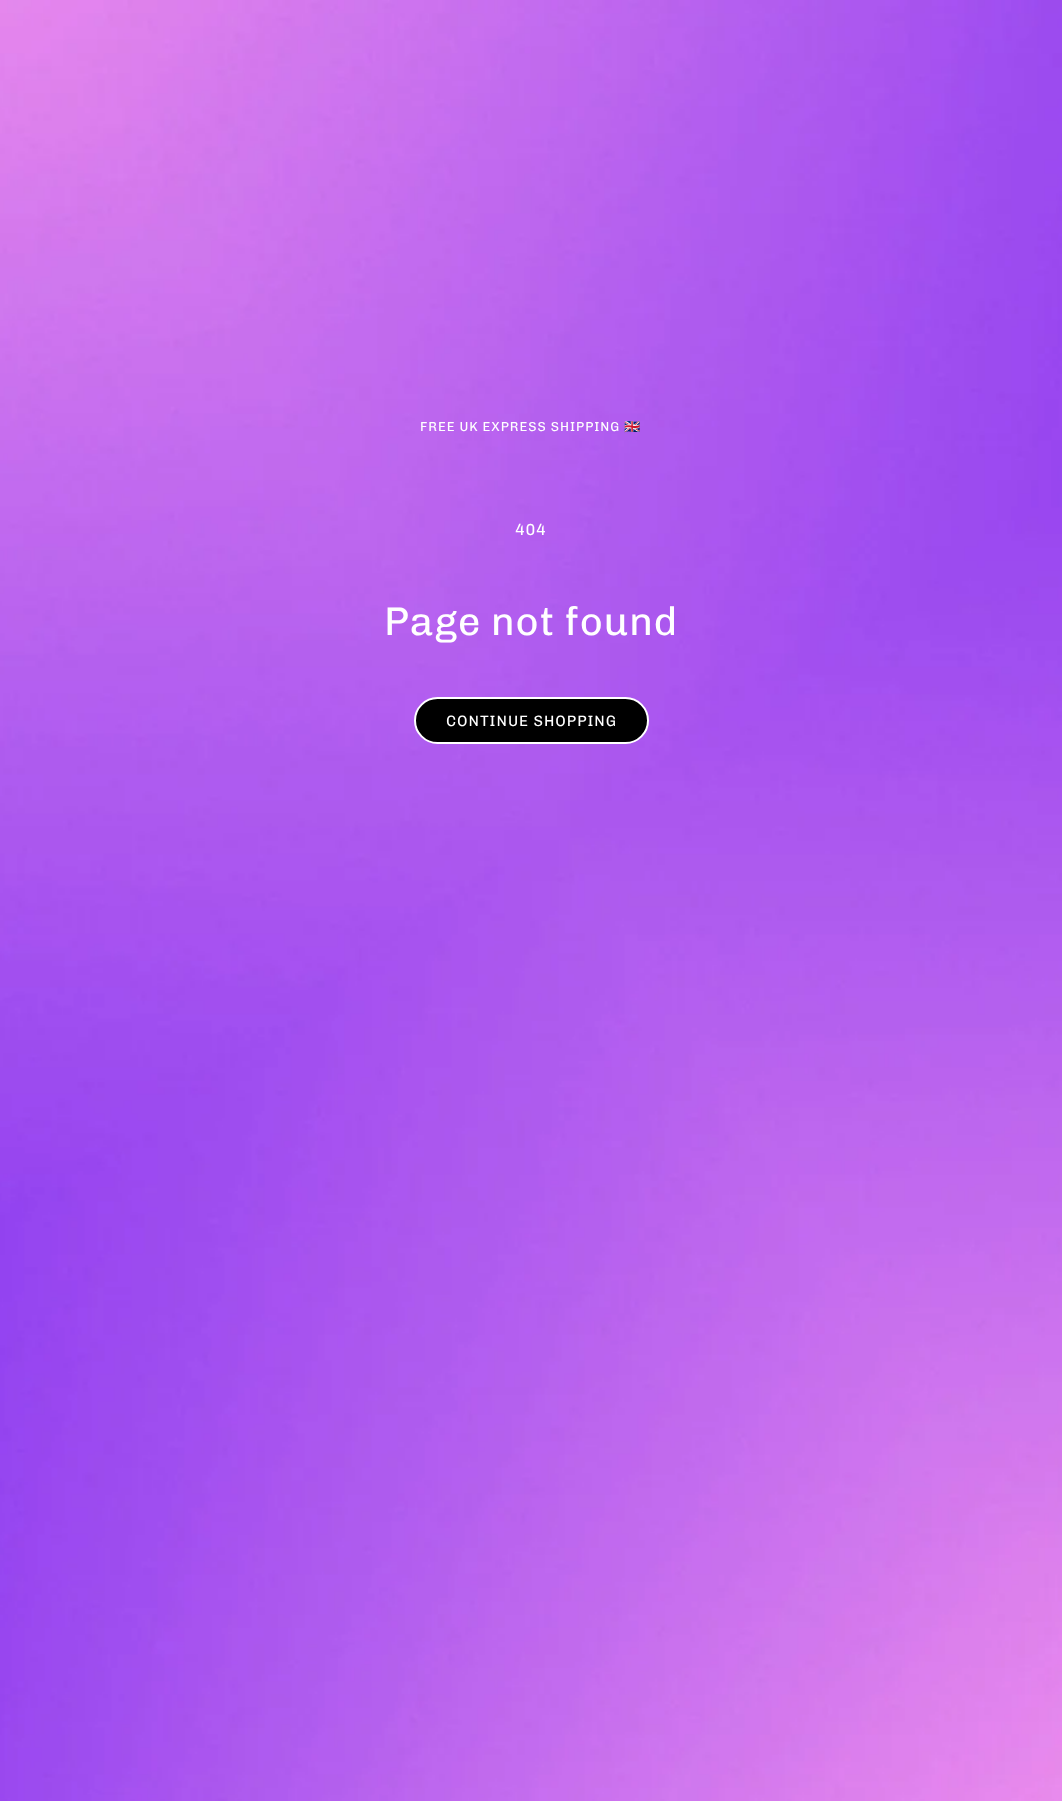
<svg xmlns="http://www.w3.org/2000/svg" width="1062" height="1801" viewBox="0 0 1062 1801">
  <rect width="100%" height="100%" fill="#ffffff"/>
  <image x="0" y="0" width="1062" height="1801" href="img1.png"/>
  <text x="420" y="431" font-family="Chivo" font-size="13" letter-spacing="1" fill="#ffffff">FREE UK EXPRESS SHIPPING</text>
  <text x="624" y="431" font-family="Noto Color Emoji" font-size="13" letter-spacing="1" fill="#ffffff">🇬🇧</text>
  <text x="515" y="535" font-family="Chivo" font-size="16" letter-spacing="0.6" fill="#ffffff">404</text>
  <text x="384" y="635" font-family="Chivo" font-size="40" letter-spacing="0.6" fill="#ffffff">Page not found</text>
  <rect x="415" y="698" width="233" height="45" rx="22.5" fill="#000000" stroke="#ffffff" stroke-width="2"/>
  <text x="446" y="726" font-family="Chivo" font-size="15" letter-spacing="1" fill="#ffffff">CONTINUE SHOPPING</text>
</svg>
